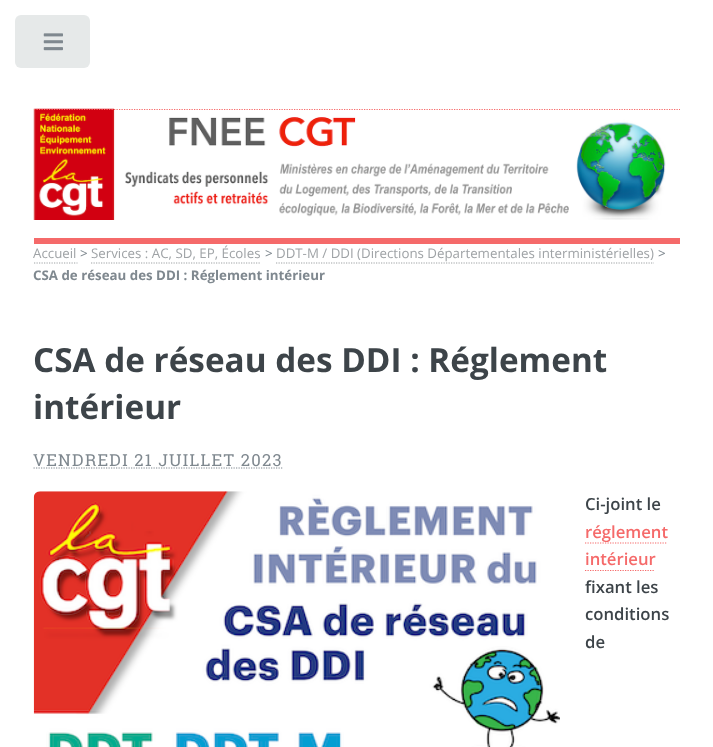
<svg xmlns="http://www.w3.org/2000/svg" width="713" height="747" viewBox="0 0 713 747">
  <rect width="100%" height="100%" fill="#ffffff"/>
  <rect x="15" y="15" width="75" height="53" rx="6" fill="#e6e9e9"/>
  <image x="43" y="33" width="20" height="18" href="img1.png"/>
  <rect x="34" y="238" width="646" height="6" fill="#f56a6a"/>
  <image x="33" y="108" width="633" height="112" href="img2.png"/>
  <path d="M34 109.5H680" fill="none" stroke="#f56a6a" stroke-width="1.2" stroke-dasharray="1.25 1.25"/>
  <text x="33" y="258" font-family="Open Sans" font-size="13.3" fill="#9fa3a6">Accueil</text>
  <path d="M34 263H77.5" fill="none" stroke="#9fa3a6" stroke-width="1.2" stroke-dasharray="1.25 1.25"/>
  <text x="80" y="258" font-family="Open Sans" font-size="13.3" fill="#7f888f">&gt;</text>
  <text x="91" y="258" font-family="Open Sans" font-size="13.3" fill="#9fa3a6">Services : AC, SD, EP, Écoles</text>
  <path d="M91 263H261" fill="none" stroke="#9fa3a6" stroke-width="1.2" stroke-dasharray="1.25 1.25"/>
  <text x="265" y="258" font-family="Open Sans" font-size="13.3" fill="#7f888f">&gt;</text>
  <text x="276" y="258" font-family="Open Sans" font-size="13.3" fill="#9fa3a6">DDT-M / DDI (Directions Départementales interministérielles)</text>
  <path d="M276 263H654" fill="none" stroke="#9fa3a6" stroke-width="1.2" stroke-dasharray="1.25 1.25"/>
  <text x="658" y="258" font-family="Open Sans" font-size="13.3" fill="#7f888f">&gt;</text>
  <text x="33" y="280" font-family="Open Sans" font-size="13.3" font-weight="bold" fill="#7f888f">CSA de réseau des DDI : Réglement intérieur</text>
  <text x="33" y="372" font-family="Open Sans" font-size="33.3" font-weight="bold" fill="#3d4449">CSA de réseau des DDI : Réglement</text>
  <text x="33" y="419" font-family="Open Sans" font-size="33.3" font-weight="bold" fill="#3d4449">intérieur</text>
  <text x="33" y="466" font-family="Roboto Slab" font-size="16.7" letter-spacing="1.25" fill="#7f888f">VENDREDI 21 JUILLET 2023</text>
  <path d="M33.5 468H282.5" fill="none" stroke="#7f888f" stroke-width="1.2" stroke-dasharray="1.25 1.25"/>
  <image x="33" y="491" width="527" height="256" href="img3.png"/>
  <text x="585" y="510" font-family="Open Sans" font-size="16.7" font-weight="600" fill="#3d4449">Ci-joint le</text>
  <text x="585" y="538" font-family="Open Sans" font-size="16.7" font-weight="600" fill="#f56a6a">réglement</text>
  <path d="M585 543H667.5" fill="none" stroke="#f56a6a" stroke-width="1.2" stroke-dasharray="1.25 1.25"/>
  <text x="585" y="565" font-family="Open Sans" font-size="16.7" font-weight="600" fill="#f56a6a">intérieur</text>
  <path d="M585 570.5H655" fill="none" stroke="#f56a6a" stroke-width="1.2" stroke-dasharray="1.25 1.25"/>
  <text x="585" y="593" font-family="Open Sans" font-size="16.7" font-weight="600" fill="#3d4449">fixant les</text>
  <text x="585" y="620" font-family="Open Sans" font-size="16.7" font-weight="600" fill="#3d4449">conditions</text>
  <text x="585" y="648" font-family="Open Sans" font-size="16.7" font-weight="600" fill="#3d4449">de</text>
</svg>
